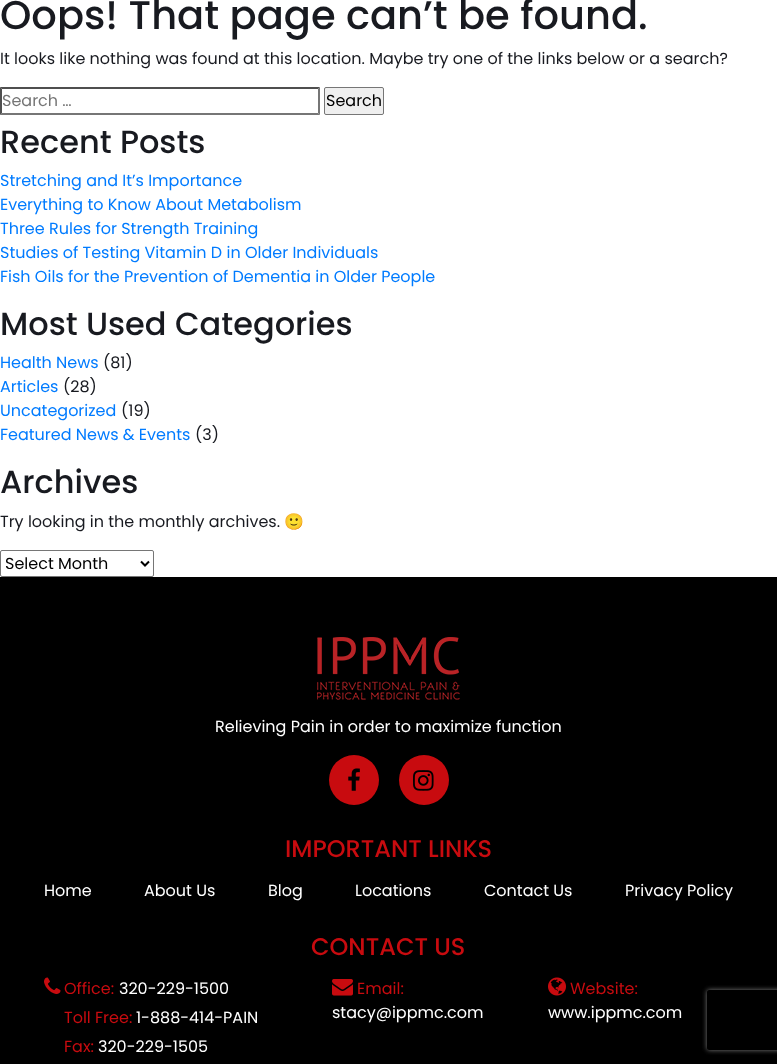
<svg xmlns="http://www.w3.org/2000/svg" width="777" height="1064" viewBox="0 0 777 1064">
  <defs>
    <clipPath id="clip1"><path d="M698 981H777V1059H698ZM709 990H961C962 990 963 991 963 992V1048C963 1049 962 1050 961 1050H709C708 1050 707 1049 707 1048V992C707 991 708 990 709 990Z" clip-rule="evenodd"/></clipPath>
    <filter id="blur1" x="-50%" y="-200%" width="200%" height="500%"><feGaussianBlur stdDeviation="2.5"/></filter>
  </defs>
  <rect width="100%" height="100%" fill="#ffffff"/>
  <text x="0" y="29" font-family="Poppins" font-size="40" font-weight="500" fill="#181a20">Oops! That page can’t be found.</text>
  <text x="0" y="64" font-family="Poppins" font-size="16" fill="#181a20">It looks like nothing was found at this location. Maybe try one of the links below or a search?</text>
  <path d="M0 87H320L318 89H2Z" fill="#4f4f4f"/>
  <path d="M320 87V115L318 113V89Z" fill="#767676"/>
  <path d="M320 115H0L2 113H318Z" fill="#767676"/>
  <path d="M0 115V87L2 89V113Z" fill="#4f4f4f"/>
  <text x="2" y="106" font-family="Poppins" font-size="16" fill="#757575">Search …</text>
  <rect x="324.5" y="87.5" width="59" height="27" rx="1.5" fill="#efefef" stroke="#767676"/>
  <text x="326" y="106" font-family="Poppins" font-size="16" fill="#000000">Search</text>
  <text x="0" y="153" font-family="Poppins" font-size="32" font-weight="500" fill="#181a20">Recent Posts</text>
  <text x="0" y="186" font-family="Poppins" font-size="16" fill="#007bff">Stretching and It’s Importance</text>
  <text x="0" y="210" font-family="Poppins" font-size="16" fill="#007bff">Everything to Know About Metabolism</text>
  <text x="0" y="234" font-family="Poppins" font-size="16" fill="#007bff">Three Rules for Strength Training</text>
  <text x="0" y="258" font-family="Poppins" font-size="16" fill="#007bff">Studies of Testing Vitamin D in Older Individuals</text>
  <text x="0" y="282" font-family="Poppins" font-size="16" fill="#007bff">Fish Oils for the Prevention of Dementia in Older People</text>
  <text x="0" y="335" font-family="Poppins" font-size="32" font-weight="500" fill="#181a20">Most Used Categories</text>
  <text x="0" y="368" font-family="Poppins" font-size="16" fill="#007bff">Health News</text>
  <text x="103" y="368" font-family="Poppins" font-size="16" fill="#181a20">(81)</text>
  <text x="0" y="392" font-family="Poppins" font-size="16" fill="#007bff">Articles</text>
  <text x="63" y="392" font-family="Poppins" font-size="16" fill="#181a20">(28)</text>
  <text x="0" y="416" font-family="Poppins" font-size="16" fill="#007bff">Uncategorized</text>
  <text x="121" y="416" font-family="Poppins" font-size="16" fill="#181a20">(19)</text>
  <text x="0" y="440" font-family="Poppins" font-size="16" fill="#007bff">Featured News &amp; Events</text>
  <text x="195" y="440" font-family="Poppins" font-size="16" fill="#181a20">(3)</text>
  <text x="0" y="493" font-family="Poppins" font-size="32" font-weight="500" fill="#181a20">Archives</text>
  <text x="0" y="527" font-family="Poppins" font-size="16" fill="#181a20">Try looking in the monthly archives.</text>
  <text x="284" y="527" font-family="Noto Color Emoji" font-size="16" fill="#181a20">🙂</text>
  <rect x="0.5" y="550.5" width="153" height="26" rx="1.5" fill="none" stroke="#767676"/>
  <path d="M141 561.5L145 565.5L149 561.5" fill="none" stroke="#000000" stroke-width="2"/>
  <text x="5" y="569" font-family="Poppins" font-size="16" fill="#000000">Select Month</text>
  <rect x="0" y="577" width="777" height="487" fill="#000000"/>
  <image x="317" y="637" width="143" height="63" href="img1.png"/>
  <text x="215" y="732" font-family="Poppins" font-size="16" fill="#ffffff">Relieving Pain in order to maximize function</text>
  <circle cx="354" cy="780" r="25" fill="#c80b0f"/>
  <image x="348" y="768" width="12" height="23" href="img2.png"/>
  <circle cx="424" cy="780" r="25" fill="#c80b0f"/>
  <image x="413" y="770" width="21" height="21" href="img3.png"/>
  <text x="285" y="857" font-family="Poppins" font-size="24" font-weight="500" fill="#c80b0f">IMPORTANT LINKS</text>
  <text x="44" y="896" font-family="Poppins" font-size="16" fill="#ffffff">Home</text>
  <text x="144" y="896" font-family="Poppins" font-size="16" fill="#ffffff">About Us</text>
  <text x="268" y="896" font-family="Poppins" font-size="16" fill="#ffffff">Blog</text>
  <text x="355" y="896" font-family="Poppins" font-size="16" fill="#ffffff">Locations</text>
  <text x="484" y="896" font-family="Poppins" font-size="16" fill="#ffffff">Contact Us</text>
  <text x="625" y="896" font-family="Poppins" font-size="16" fill="#ffffff">Privacy Policy</text>
  <text x="311" y="955" font-family="Poppins" font-size="24" font-weight="500" fill="#c80b0f">CONTACT US</text>
  <image x="44" y="977" width="17" height="17" href="img4.png"/>
  <text x="64" y="994" font-family="Poppins" font-size="16" fill="#c80b0f">Office:</text>
  <text x="119" y="994" font-family="Poppins" font-size="16" fill="#ffffff">320-229-1500</text>
  <text x="64" y="1023" font-family="Poppins" font-size="16" fill="#c80b0f">Toll Free:</text>
  <text x="136" y="1023" font-family="Poppins" font-size="16" fill="#ffffff">1-888-414-PAIN</text>
  <text x="64" y="1052" font-family="Poppins" font-size="16" fill="#c80b0f">Fax:</text>
  <text x="98" y="1052" font-family="Poppins" font-size="16" fill="#ffffff">320-229-1505</text>
  <image x="332" y="979" width="21" height="17" href="img5.png"/>
  <text x="357" y="994" font-family="Poppins" font-size="16" fill="#c80b0f">Email:</text>
  <text x="332" y="1018" font-family="Poppins" font-size="16" fill="#ffffff">stacy@ippmc.com</text>
  <image x="548" y="977" width="18" height="19" href="img6.png"/>
  <text x="570" y="994" font-family="Poppins" font-size="16" fill="#c80b0f">Website:</text>
  <text x="548" y="1018" font-family="Poppins" font-size="16" fill="#ffffff">www.ippmc.com</text>
  <g clip-path="url(#clip1)">
    <rect x="707" y="990" width="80" height="60" rx="2" fill="#808080" filter="url(#blur1)"/>
  </g>
</svg>
